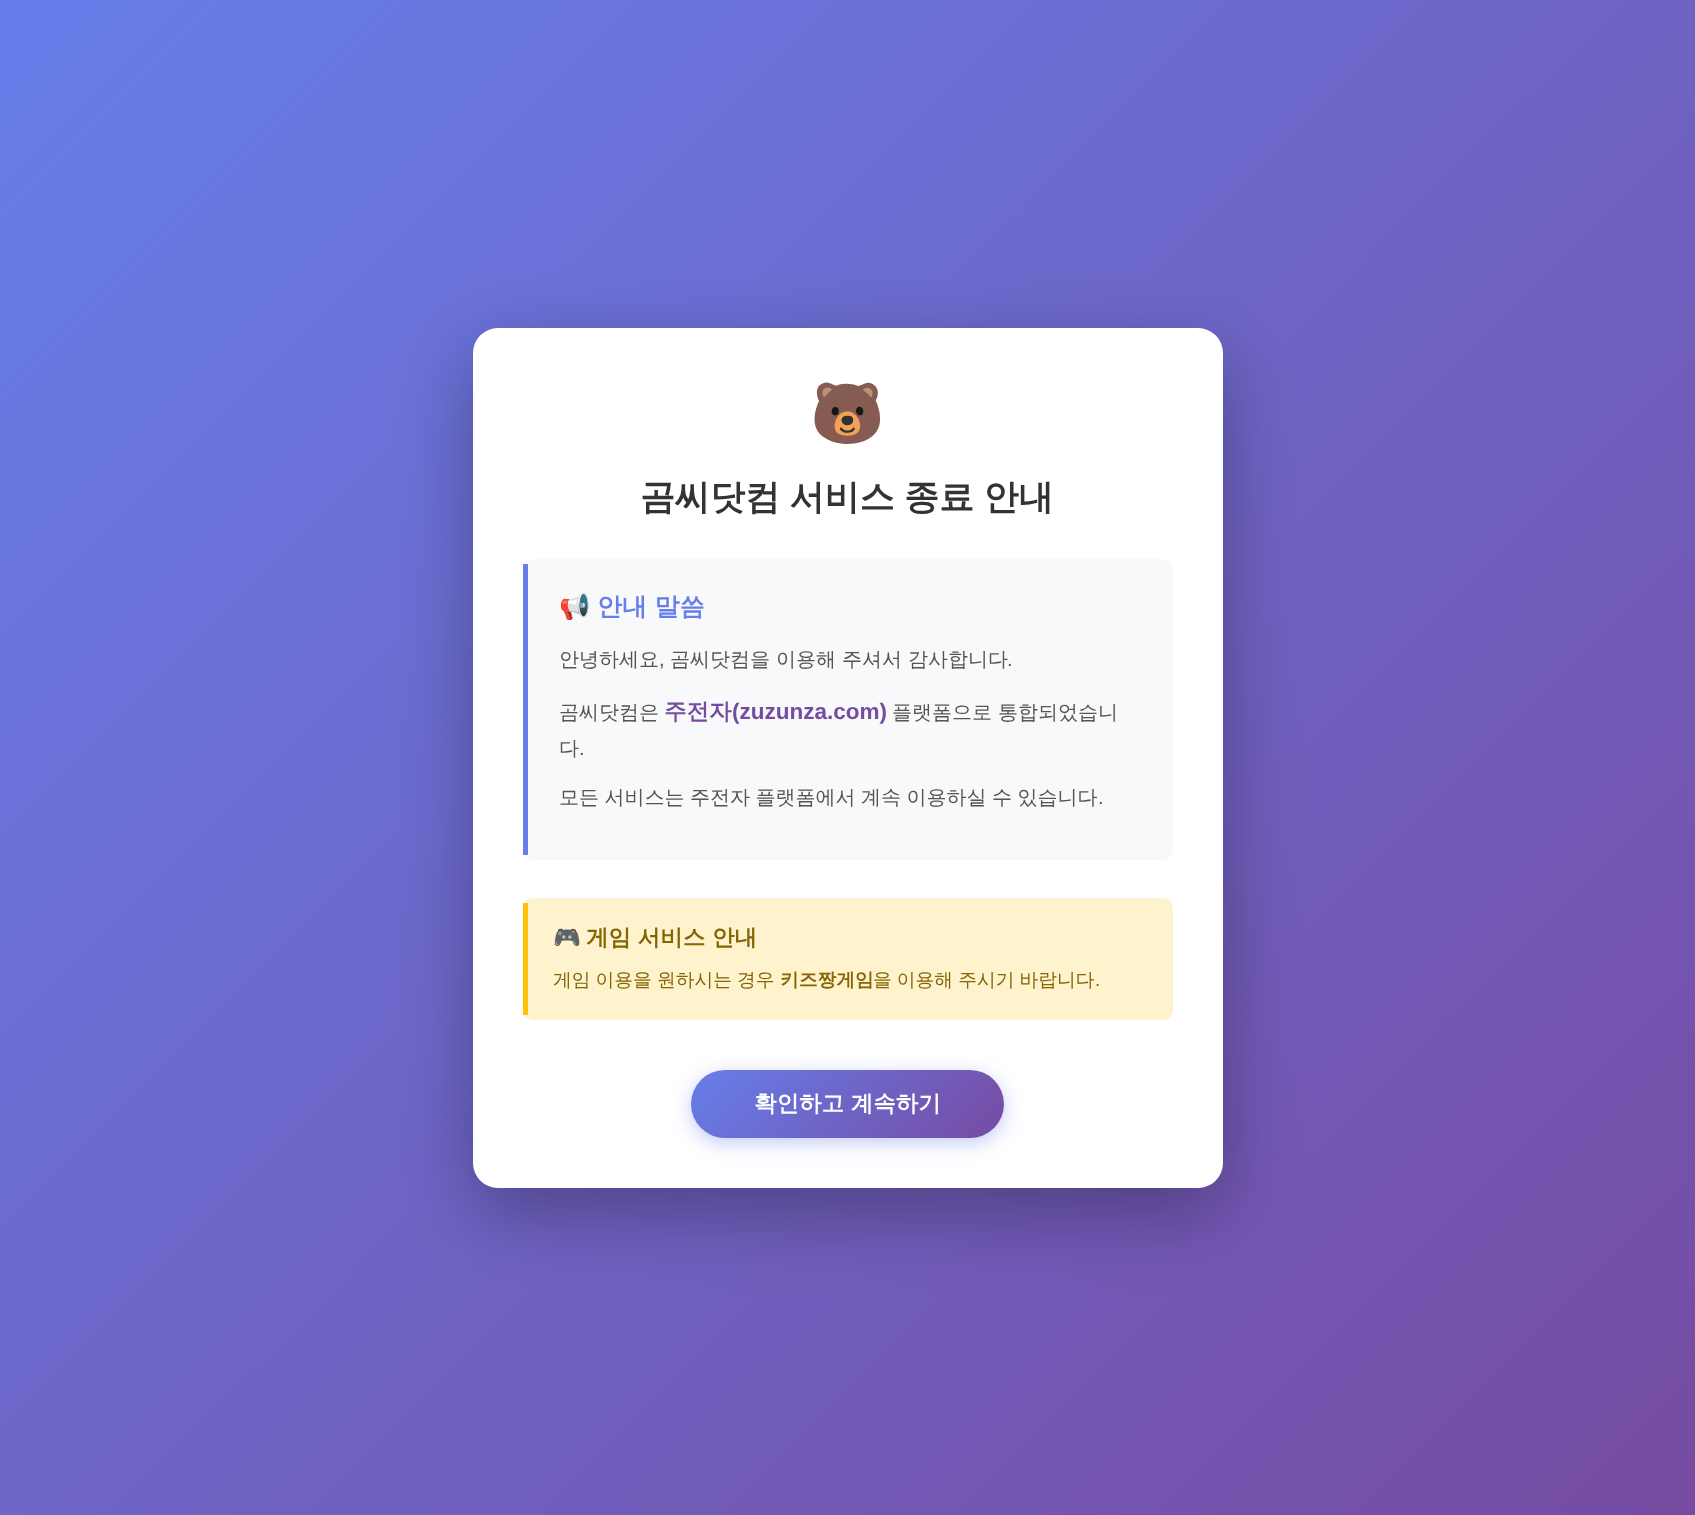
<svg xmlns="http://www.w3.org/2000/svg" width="1695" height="1515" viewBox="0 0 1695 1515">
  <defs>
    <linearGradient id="g1" gradientUnits="userSpaceOnUse" x1="45" y1="-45" x2="1650" y2="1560"><stop offset="0" stop-color="#667eea"/><stop offset="1" stop-color="#764ba2"/></linearGradient>
    <filter id="blur1" x="-50%" y="-200%" width="200%" height="500%"><feGaussianBlur stdDeviation="37.5"/></filter>
    <filter id="blur2" x="-50%" y="-200%" width="200%" height="500%"><feGaussianBlur stdDeviation="9.5"/></filter>
    <linearGradient id="g2" gradientUnits="userSpaceOnUse" x1="753" y1="1009" x2="943" y2="1199"><stop offset="0" stop-color="#667eea"/><stop offset="1" stop-color="#764ba2"/></linearGradient>
  </defs>
  <rect width="100%" height="100%" fill="#ffffff"/>
  <rect x="0" y="0" width="1695" height="1515" fill="url(#g1)"/>
  <rect x="473" y="353" width="750" height="860" rx="25" fill="#000000" fill-opacity="0.3" filter="url(#blur1)"/>
  <rect x="473" y="328" width="750" height="860" rx="25" fill="#ffffff"/>
  <text x="810" y="434" font-family="Noto Color Emoji" font-size="60" fill="#000000">🐻</text>
  <text x="640" y="509" word-spacing="-1" font-family="WenQuanYi Zen Hei" font-size="35" font-weight="bold" fill="#333333">곰씨닷컴 서비스 종료 안내</text>
  <rect x="523" y="559" width="650" height="301" rx="10" fill="#f8f9fa"/>
  <rect x="523" y="564" width="5" height="291" fill="#667eea"/>
  <text x="559" y="615" font-family="Noto Color Emoji" font-size="25" font-weight="bold" fill="#667eea">📢</text>
  <text x="597" y="615" font-family="WenQuanYi Zen Hei" font-size="25" font-weight="bold" fill="#667eea">안내 말씀</text>
  <text x="559" y="666" font-family="WenQuanYi Zen Hei" font-size="20" font-weight="500" fill="#555555">안녕하세요</text>
  <text x="659" y="666" font-family="Liberation Sans" font-size="20" fill="#555555">,</text>
  <text x="670" y="666" font-family="WenQuanYi Zen Hei" font-size="20" font-weight="500" fill="#555555">곰씨닷컴을 이용해 주셔서 감사합니다</text>
  <text x="1007" y="666" font-family="Liberation Sans" font-size="20" fill="#555555">.</text>
  <text x="559" y="719" font-family="WenQuanYi Zen Hei" font-size="20" font-weight="500" fill="#555555">곰씨닷컴은</text>
  <text x="664" y="719" font-family="WenQuanYi Zen Hei" font-size="22.5" font-weight="bold" fill="#764ba2">주전자</text>
  <text x="732" y="719" font-family="Liberation Sans" font-size="22.5" font-weight="bold" fill="#764ba2">(zuzunza.com)</text>
  <text x="892" y="719" font-family="WenQuanYi Zen Hei" font-size="20" font-weight="500" fill="#555555">플랫폼으로 통합되었습니</text>
  <text x="559" y="755" font-family="WenQuanYi Zen Hei" font-size="20" font-weight="500" fill="#555555">다</text>
  <text x="579" y="755" font-family="Liberation Sans" font-size="20" fill="#555555">.</text>
  <text x="559" y="804" word-spacing="-0.5" font-family="WenQuanYi Zen Hei" font-size="20" font-weight="500" fill="#555555">모든 서비스는 주전자 플랫폼에서 계속 이용하실 수 있습니다</text>
  <text x="1098" y="804" font-family="Liberation Sans" font-size="20" fill="#555555">.</text>
  <rect x="523" y="898" width="650" height="122" rx="10" fill="#fff3cd"/>
  <rect x="523" y="903" width="5" height="112" fill="#ffc107"/>
  <text x="553" y="945" font-family="Noto Color Emoji" font-size="22.5" font-weight="bold" fill="#856404">🎮</text>
  <text x="586" y="945" font-family="WenQuanYi Zen Hei" font-size="22.5" font-weight="bold" fill="#856404">게임 서비스 안내</text>
  <text x="553" y="986" word-spacing="-0.5" font-family="WenQuanYi Zen Hei" font-size="18.75" font-weight="500" fill="#856404">게임 이용을 원하시는 경우</text>
  <text x="780" y="986" font-family="WenQuanYi Zen Hei" font-size="18.75" font-weight="bold" fill="#856404">키즈짱게임</text>
  <text x="873" y="986" word-spacing="-0.5" font-family="WenQuanYi Zen Hei" font-size="18.75" font-weight="500" fill="#856404">을 이용해 주시기 바랍니다</text>
  <text x="1095" y="986" font-family="Liberation Sans" font-size="18.75" fill="#856404">.</text>
  <rect x="691" y="1075" width="313" height="68" rx="34" fill="#667eea" fill-opacity="0.4" filter="url(#blur2)"/>
  <rect x="691" y="1070" width="313" height="68" rx="34" fill="url(#g2)"/>
  <text x="754" y="1111" font-family="WenQuanYi Zen Hei" font-size="22.5" font-weight="bold" fill="#ffffff">확인하고 계속하기</text>
</svg>
